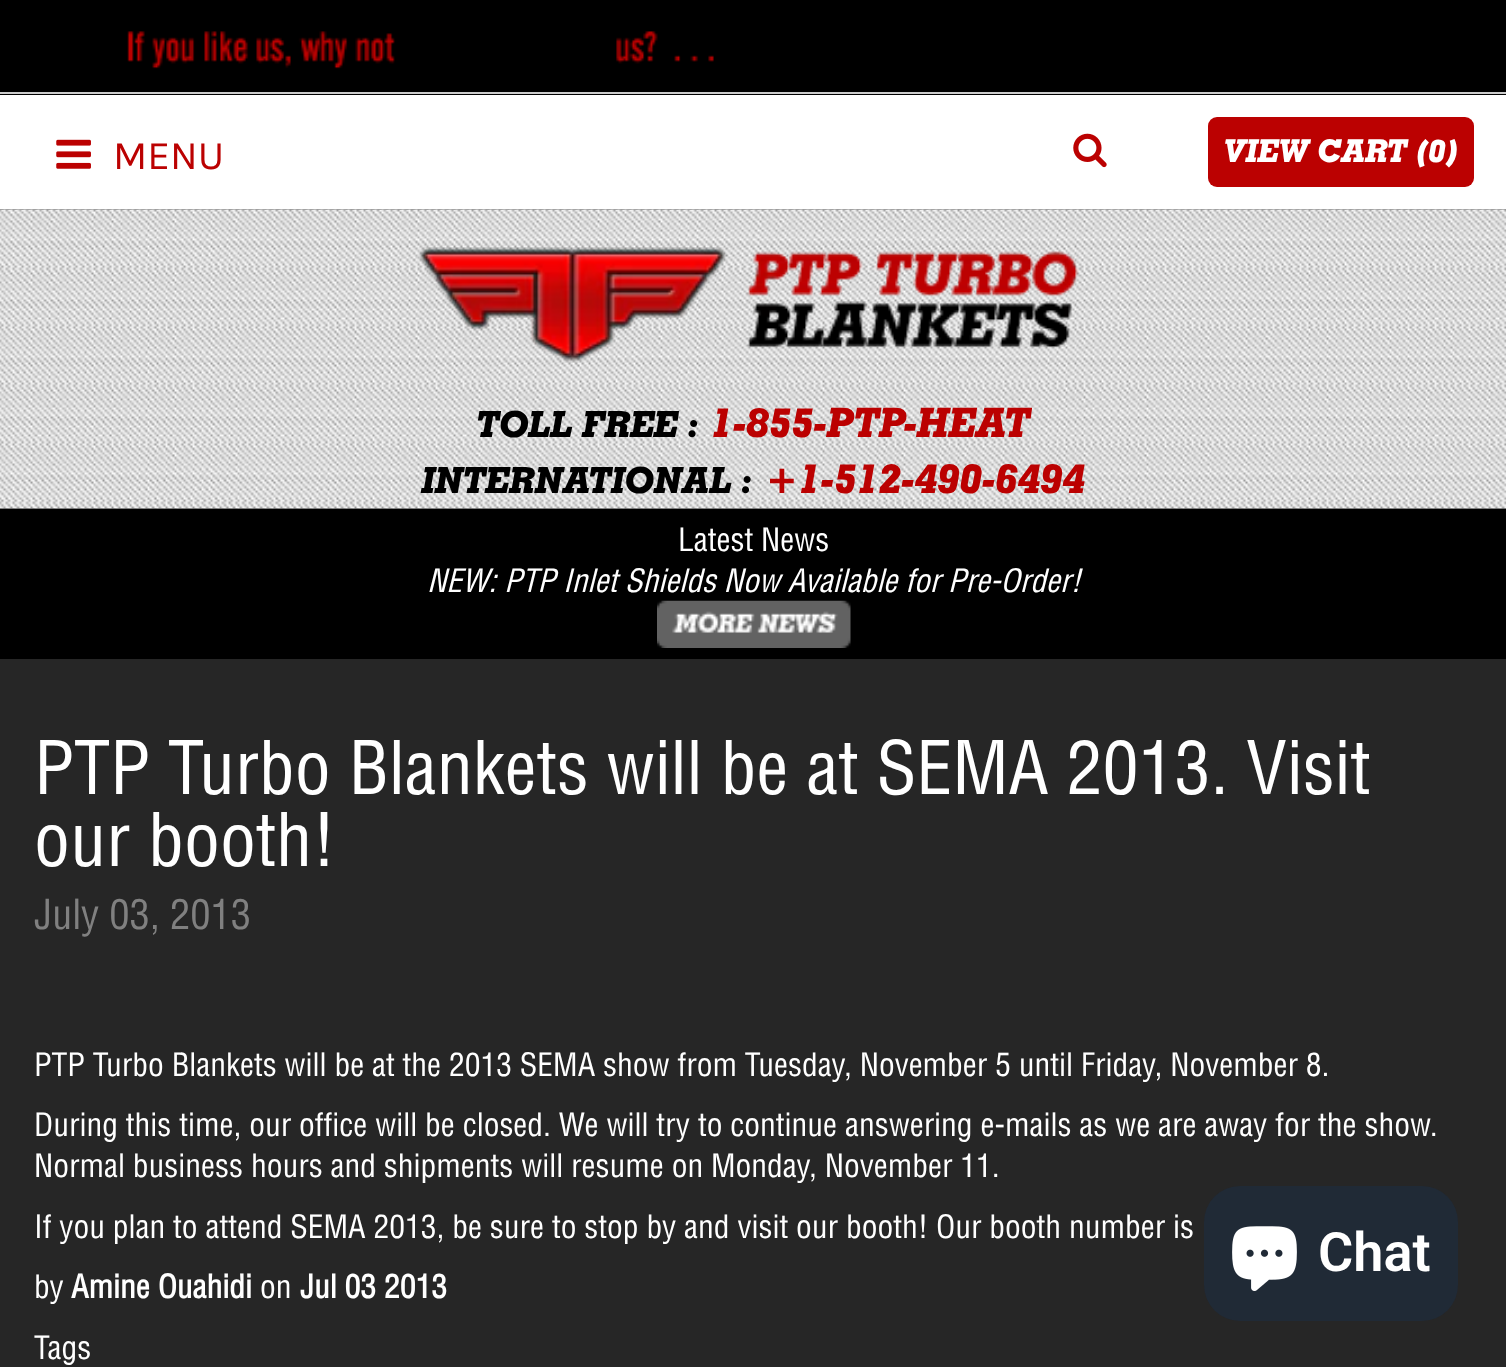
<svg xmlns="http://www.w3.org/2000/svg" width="1506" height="1367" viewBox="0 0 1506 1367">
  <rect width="100%" height="100%" fill="#ffffff"/>
  <rect x="0" y="0" width="1506" height="95" fill="#000000"/>
  <rect x="0" y="92" width="1506" height="2" fill="#cccccc"/>
  <image x="127" y="31" width="268" height="38" href="img1.png"/>
  <image x="616" y="31" width="98" height="33" href="img2.png"/>
  <image x="56" y="139" width="35" height="30" href="img3.png"/>
  <text x="113" y="169" font-family="Karla" font-size="40.5" fill="#bb0101">MENU</text>
  <image x="1073" y="133" width="34" height="35" href="img4.png"/>
  <rect x="1208" y="117" width="266" height="70" rx="9" fill="#bb0101"/>
  <text x="1224" y="162" font-family="'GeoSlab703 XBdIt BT'" font-size="31.5" font-weight="bold" fill="#ffffff">VIEW CART (0)</text>
  <rect x="0" y="209" width="1506" height="300" fill="#262626"/>
  <image x="0" y="209" width="1506" height="300" href="img5.png"/>
  <image x="418" y="247" width="661" height="116" href="img6.png"/>
  <text x="477" y="437" font-family="'GeoSlab703 XBdIt BT'" font-size="36" font-weight="bold" fill="#000000">TOLL FREE :</text>
  <text x="711" y="437" font-family="'GeoSlab703 XBdIt BT'" font-size="40.5" font-weight="bold" fill="#bb0101">1-855-PTP-HEAT</text>
  <text x="422" y="493" font-family="'GeoSlab703 XBdIt BT'" font-size="36" font-weight="bold" fill="#000000">INTERNATIONAL :</text>
  <text x="765" y="493" font-family="'GeoSlab703 XBdIt BT'" font-size="40.5" font-weight="bold" fill="#bb0101">+1-512-490-6494</text>
  <rect x="0" y="509" width="1506" height="150" fill="#000000"/>
  <text x="678" y="551" font-family="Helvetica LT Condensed" font-size="31.5" font-weight="500" fill="#ffffff">Latest News</text>
  <text x="427" y="592" font-family="Helvetica LT Condensed" font-size="31.5" font-weight="500" font-style="italic" fill="#ffffff">NEW: PTP Inlet Shields Now Available for Pre-Order!</text>
  <image x="657" y="600" width="194" height="48" href="img7.png"/>
  <rect x="0" y="659" width="1506" height="708" fill="#262626"/>
  <text x="34" y="794" font-family="Helvetica LT Condensed" font-size="72" font-weight="500" fill="#ffffff">PTP Turbo Blankets will be at SEMA 2013. Visit</text>
  <text x="34" y="866" font-family="Helvetica LT Condensed" font-size="72" font-weight="500" fill="#ffffff">our booth!</text>
  <text x="34" y="929" font-family="Helvetica LT Condensed" font-size="40.5" font-weight="500" fill="#808080">July 03, 2013</text>
  <text x="34" y="1076" font-family="Helvetica LT Condensed" font-size="31.5" font-weight="500" fill="#ffffff">PTP Turbo Blankets will be at the 2013 SEMA show from Tuesday, November 5 until Friday, November 8.</text>
  <text x="34" y="1136" font-family="Helvetica LT Condensed" font-size="31.5" font-weight="500" fill="#ffffff">During this time, our office will be closed. We will try to continue answering e-mails as we are away for the show.</text>
  <text x="34" y="1177" font-family="Helvetica LT Condensed" font-size="31.5" font-weight="500" fill="#ffffff">Normal business hours and shipments will resume on Monday, November 11.</text>
  <text x="34" y="1238" font-family="Helvetica LT Condensed" font-size="31.5" font-weight="500" fill="#ffffff">If you plan to attend SEMA 2013, be sure to stop by and visit our booth! Our booth number is</text>
  <text x="34" y="1298" font-family="Helvetica LT Condensed" font-size="31.5" font-weight="500" fill="#ffffff">by</text>
  <text x="71" y="1298" font-family="Helvetica LT Condensed" font-size="31.5" font-weight="bold" fill="#ffffff">Amine Ouahidi</text>
  <text x="260" y="1298" font-family="Helvetica LT Condensed" font-size="31.5" font-weight="500" fill="#ffffff">on</text>
  <text x="300" y="1298" font-family="Helvetica LT Condensed" font-size="31.5" font-weight="bold" fill="#ffffff">Jul 03 2013</text>
  <text x="34" y="1359" font-family="Helvetica LT Condensed" font-size="31.5" font-weight="500" fill="#ffffff">Tags</text>
  <rect x="1204" y="1186" width="254" height="135" rx="36" fill="#202a36"/>
  <image x="1232" y="1226" width="65" height="65" href="img8.png"/>
  <text x="1318" y="1271" font-family="Roboto" font-size="54" font-weight="600" fill="#ffffff">Chat</text>
</svg>
